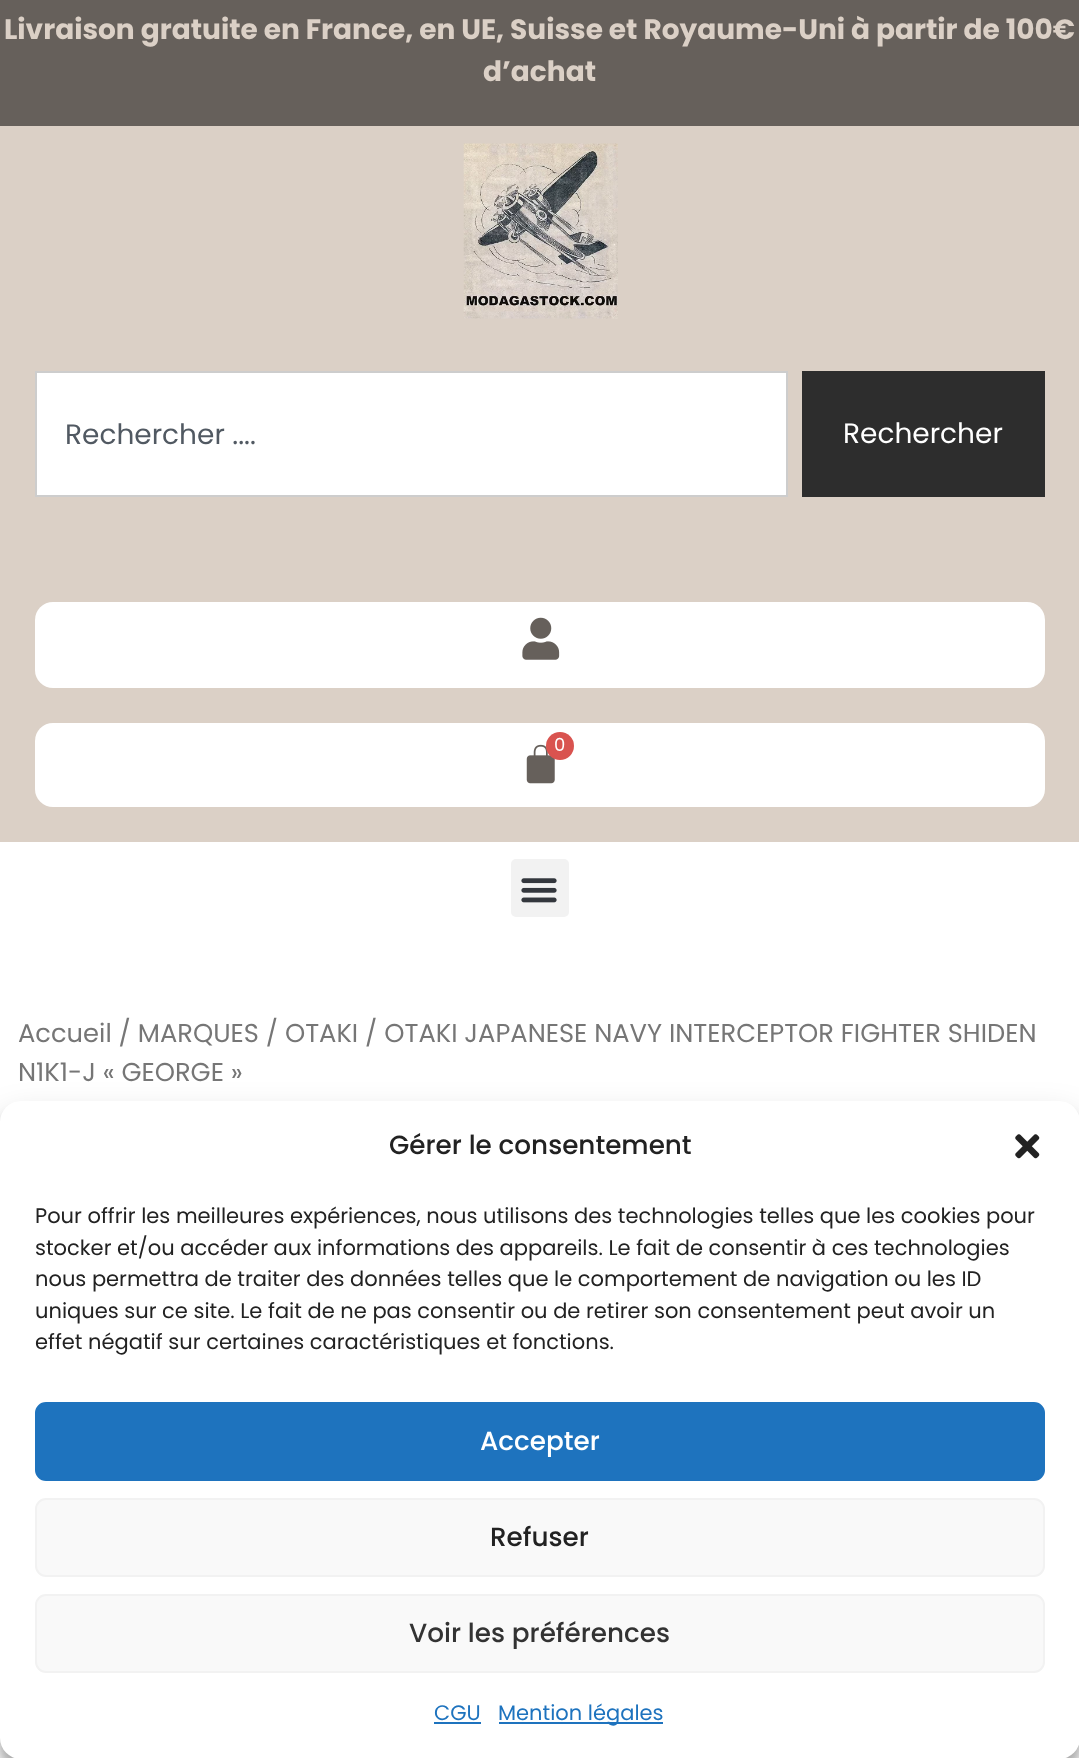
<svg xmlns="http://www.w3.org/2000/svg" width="1079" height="1758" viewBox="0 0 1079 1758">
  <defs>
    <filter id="blur1" x="-50%" y="-200%" width="200%" height="500%"><feGaussianBlur stdDeviation="5"/></filter>
    <filter id="blur2" x="-50%" y="-200%" width="200%" height="500%"><feGaussianBlur stdDeviation="17.5"/></filter>
  </defs>
  <rect width="100%" height="100%" fill="#ffffff"/>
  <rect x="0" y="0" width="1079" height="126" fill="#66605b"/>
  <text x="4" y="39" font-family="Poppins" font-size="28" font-weight="bold" fill="#dbd0c6">Livraison gratuite en France, en UE, Suisse et Royaume-Uni à partir de 100€</text>
  <text x="483" y="81" font-family="Poppins" font-size="28" font-weight="bold" fill="#dbd0c6">d’achat</text>
  <rect x="0" y="126" width="1079" height="716" fill="#dbd0c6"/>
  <image x="463" y="143" width="155" height="176" href="img1.png"/>
  <rect x="36" y="372" width="751" height="124" fill="#ffffff" stroke="#cdcdcd" stroke-width="2"/>
  <text x="65" y="444" font-family="Poppins" font-size="28" fill="#515962">Rechercher ....</text>
  <rect x="802" y="371" width="243" height="126" fill="#2d2d2d"/>
  <text x="843" y="443" font-family="Poppins" font-size="28" fill="#ffffff">Rechercher</text>
  <rect x="35" y="602" width="1010" height="86" rx="18" fill="#ffffff"/>
  <image x="522" y="617" width="38" height="43" href="img2.png"/>
  <rect x="35" y="723" width="1010" height="84" rx="18" fill="#ffffff"/>
  <image x="526" y="744" width="29" height="40" href="img3.png"/>
  <circle cx="560" cy="746" r="14" fill="#d9534f"/>
  <text x="554" y="751" font-family="Poppins" font-size="18" fill="#ffffff">0</text>
  <rect x="511" y="859" width="58" height="58" rx="5" fill="#f2f2f2"/>
  <image x="521" y="878" width="36" height="25" href="img4.png"/>
  <text x="18" y="1042" font-family="Poppins" font-size="25.75" fill="#767676">Accueil / MARQUES / OTAKI / OTAKI JAPANESE NAVY INTERCEPTOR FIGHTER SHIDEN</text>
  <text x="18" y="1081" font-family="Poppins" font-size="25.75" fill="#767676">N1K1-J « GEORGE »</text>
  <rect x="0" y="1111" width="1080" height="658" rx="21" fill="#000000" fill-opacity="0.23" filter="url(#blur1)"/>
  <rect x="0" y="1118" width="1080" height="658" rx="21" fill="#000000" fill-opacity="0.19" filter="url(#blur2)"/>
  <rect x="0" y="1101" width="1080" height="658" rx="21" fill="#ffffff"/>
  <text x="389" y="1154" font-family="Poppins" font-size="26.25" font-weight="500" fill="#222222">Gérer le consentement</text>
  <image x="1015" y="1134" width="25" height="25" href="img5.png"/>
  <text x="35" y="1223" font-family="Poppins" font-size="21" fill="#222222">Pour offrir les meilleures expériences, nous utilisons des technologies telles que les cookies pour</text>
  <text x="35" y="1255" font-family="Poppins" font-size="21" fill="#222222">stocker et/ou accéder aux informations des appareils. Le fait de consentir à ces technologies</text>
  <text x="35" y="1286" font-family="Poppins" font-size="21" fill="#222222">nous permettra de traiter des données telles que le comportement de navigation ou les ID</text>
  <text x="35" y="1318" font-family="Poppins" font-size="21" fill="#222222">uniques sur ce site. Le fait de ne pas consentir ou de retirer son consentement peut avoir un</text>
  <text x="35" y="1349" font-family="Poppins" font-size="21" fill="#222222">effet négatif sur certaines caractéristiques et fonctions.</text>
  <rect x="36" y="1403" width="1008" height="77" rx="10" fill="#1e73be" stroke="#1e73be" stroke-width="2"/>
  <text x="480" y="1450" font-family="Poppins" font-size="26.25" font-weight="500" fill="#ffffff">Accepter</text>
  <rect x="36" y="1499" width="1008" height="77" rx="10" fill="#f9f9f9" stroke="#f2f2f2" stroke-width="2"/>
  <text x="490" y="1546" font-family="Poppins" font-size="26.25" font-weight="500" fill="#222222">Refuser</text>
  <rect x="36" y="1595" width="1008" height="77" rx="10" fill="#f9f9f9" stroke="#f2f2f2" stroke-width="2"/>
  <text x="409" y="1642" font-family="Poppins" font-size="26.25" font-weight="500" fill="#333333">Voir les préférences</text>
  <text x="434" y="1720" font-family="Poppins" font-size="21" fill="#1e73be">CGU</text>
  <rect x="434" y="1722" width="47" height="2" fill="#1e73be"/>
  <rect x="499" y="1722" width="164" height="2" fill="#1e73be"/>
  <text x="498" y="1720" font-family="Poppins" font-size="21" fill="#1e73be">Mention légales</text>
</svg>
